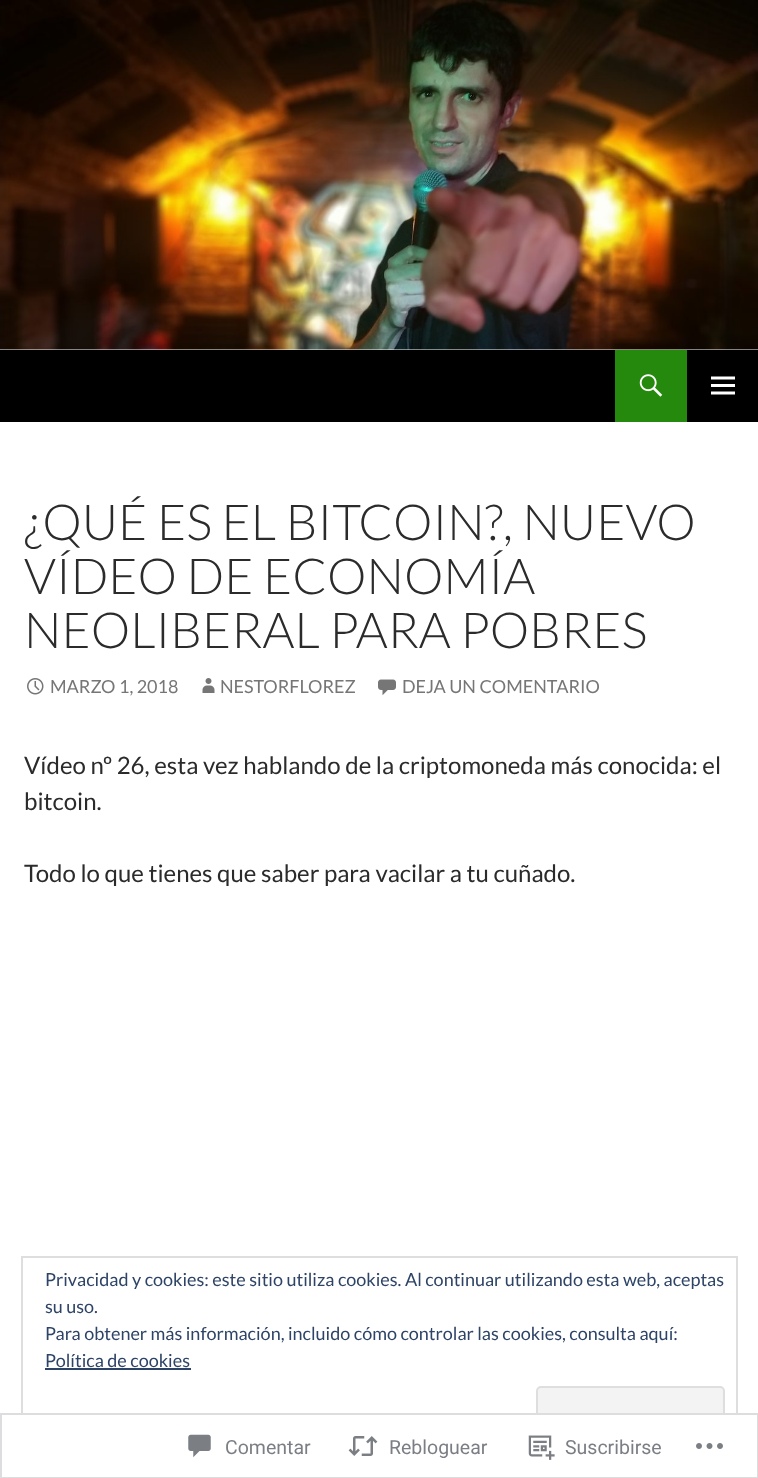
<svg xmlns="http://www.w3.org/2000/svg" width="758" height="1478" viewBox="0 0 758 1478">
  <rect width="100%" height="100%" fill="#ffffff"/>
  <image x="0" y="0" width="758" height="350" href="img1.png"/>
  <rect x="0" y="350" width="758" height="72" fill="#000000"/>
  <rect x="615" y="350" width="72" height="72" fill="#24890d"/>
  <image x="639" y="374" width="24" height="23" href="img2.png"/>
  <image x="711" y="376" width="24" height="19" href="img3.png"/>
  <text x="24" y="540" font-family="Lato" font-size="49.5" font-weight="300" fill="#2b2b2b">¿QUÉ ES EL BITCOIN?, NUEVO</text>
  <text x="24" y="594" font-family="Lato" font-size="49.5" font-weight="300" fill="#2b2b2b">VÍDEO DE ECONOMÍA</text>
  <text x="24" y="648" font-family="Lato" font-size="49.5" font-weight="300" fill="#2b2b2b">NEOLIBERAL PARA POBRES</text>
  <image x="27" y="678" width="17" height="17" href="img4.png"/>
  <text x="50" y="693" font-family="Lato" font-size="18" fill="#767676">MARZO 1, 2018</text>
  <image x="202" y="678" width="13" height="15" href="img5.png"/>
  <text x="220" y="693" font-family="Lato" font-size="18" fill="#767676">NESTORFLOREZ</text>
  <image x="378" y="679" width="18" height="17" href="img6.png"/>
  <text x="402" y="693" font-family="Lato" font-size="18" fill="#767676">DEJA UN COMENTARIO</text>
  <text x="24" y="774" font-family="Lato" font-size="24" fill="#2b2b2b">Vídeo nº 26, esta vez hablando de la criptomoneda más conocida: el</text>
  <text x="24" y="810" font-family="Lato" font-size="24" fill="#2b2b2b">bitcoin.</text>
  <text x="24" y="882" font-family="Lato" font-size="24" fill="#2b2b2b">Todo lo que tienes que saber para vacilar a tu cuñado.</text>
  <rect x="24" y="1476" width="83" height="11" rx="7" fill="none" stroke="#e0e0e0" stroke-width="2"/>
  <rect x="24" y="1476" width="83" height="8" rx="6" fill="#ffffff"/>
  <rect x="118" y="1476" width="159" height="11" rx="7" fill="none" stroke="#e0e0e0" stroke-width="2"/>
  <rect x="119" y="1476" width="157" height="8" rx="6" fill="#ffffff"/>
  <rect x="22" y="1257" width="715" height="200" fill="none" stroke="#dedede" stroke-width="2"/>
  <text x="45" y="1286" font-family="Lato" font-size="18" fill="#2e4467">Privacidad y cookies: este sitio utiliza cookies. Al continuar utilizando esta web, aceptas</text>
  <text x="45" y="1313" font-family="Lato" font-size="18" fill="#2e4467">su uso.</text>
  <text x="45" y="1340" font-family="Lato" font-size="18" fill="#2e4467">Para obtener más información, incluido cómo controlar las cookies, consulta aquí:</text>
  <text x="45" y="1367" font-family="Lato" font-size="18" fill="#2e4467">Política de cookies</text>
  <rect x="45" y="1368" width="146" height="2" fill="#2e4467"/>
  <rect x="537" y="1387" width="187" height="57" rx="4" fill="#f3f3f3" stroke="#dedede" stroke-width="2"/>
  <rect x="21" y="1413" width="717" height="65" fill="#ffffff" fill-opacity="0.98"/>
  <rect x="1" y="1414" width="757" height="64" fill="none" stroke="#dcdcde" stroke-opacity="0.98" stroke-width="2"/>
  <image x="188" y="1434" width="23" height="24" href="img7.png"/>
  <text x="225" y="1454" font-family="Roboto" font-size="19.5" fill="#7b7f85">Comentar</text>
  <image x="348" y="1436" width="30" height="20" href="img8.png"/>
  <text x="389" y="1454" font-family="Roboto" font-size="19.5" fill="#7b7f85">Rebloguear</text>
  <image x="528" y="1435" width="27" height="25" href="img9.png"/>
  <text x="565" y="1454" font-family="Roboto" font-size="19.5" fill="#7b7f85">Suscribirse</text>
  <image x="696" y="1443" width="27" height="6" href="img10.png"/>
</svg>
